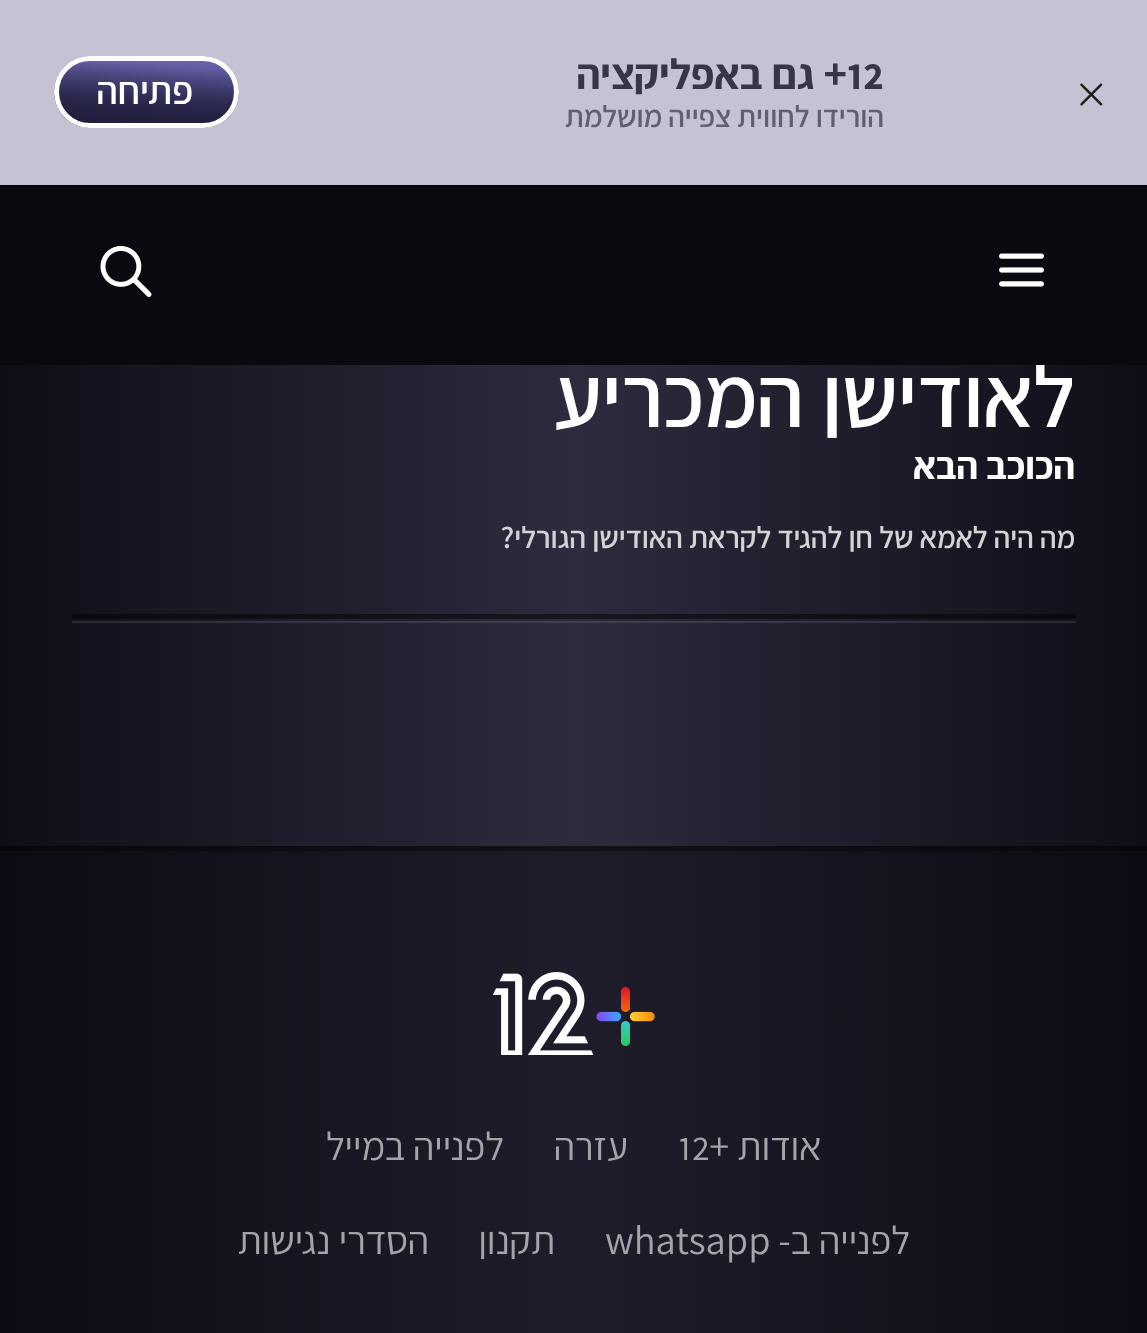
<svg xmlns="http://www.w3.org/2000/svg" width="1147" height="1333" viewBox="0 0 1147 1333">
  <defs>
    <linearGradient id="g1" gradientUnits="userSpaceOnUse" x1="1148" y1="810" x2="0" y2="810"><stop offset="0" stop-color="#0e0e18"/><stop offset="0.5" stop-color="#2d2b3d"/><stop offset="1" stop-color="#0e0e18"/></linearGradient>
    <linearGradient id="g2" gradientUnits="userSpaceOnUse" x1="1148" y1="810" x2="0" y2="810"><stop offset="0" stop-color="#06060a"/><stop offset="0.5" stop-color="#121118"/><stop offset="1" stop-color="#06060a"/></linearGradient>
    <linearGradient id="g3" gradientUnits="userSpaceOnUse" x1="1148" y1="810" x2="0" y2="810"><stop offset="0" stop-color="#26262f"/><stop offset="0.5" stop-color="#424050"/><stop offset="1" stop-color="#26262f"/></linearGradient>
    <linearGradient id="g4" gradientUnits="userSpaceOnUse" x1="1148" y1="810" x2="0" y2="810"><stop offset="0" stop-color="#07070c"/><stop offset="0.5" stop-color="#17161f"/><stop offset="1" stop-color="#07070c"/></linearGradient>
    <linearGradient id="g5" gradientUnits="userSpaceOnUse" x1="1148" y1="810" x2="0" y2="810"><stop offset="0" stop-color="#0c0c14"/><stop offset="0.5" stop-color="#1f1d2b"/><stop offset="1" stop-color="#0c0c14"/></linearGradient>
    <linearGradient id="g6" gradientUnits="userSpaceOnUse" x1="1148" y1="810" x2="0" y2="810"><stop offset="0" stop-color="#0b0b12"/><stop offset="0.5" stop-color="#1c1a27"/><stop offset="1" stop-color="#0b0b12"/></linearGradient>
    <linearGradient id="g7" gradientUnits="userSpaceOnUse" x1="146" y1="56" x2="146" y2="128"><stop offset="0" stop-color="#6e6ab5"/><stop offset="1" stop-color="#1d1e3f"/></linearGradient>
    <linearGradient id="g8" gradientUnits="userSpaceOnUse" x1="152" y1="46" x2="141" y2="139"><stop offset="0.19" stop-color="#221f3e" stop-opacity="0"/><stop offset="0.85" stop-color="#221f3e"/></linearGradient>
  </defs>
  <rect width="100%" height="100%" fill="#ffffff"/>
  <rect x="0" y="365" width="1147" height="481" fill="url(#g1)"/>
  <rect x="0" y="846" width="1147" height="5" fill="url(#g2)"/>
  <rect x="72" y="621" width="1004" height="2" fill="url(#g3)"/>
  <rect x="72" y="614" width="1004" height="5" fill="url(#g4)"/>
  <rect x="0" y="856" width="1147" height="477" fill="url(#g5)"/>
  <rect x="0" y="851" width="1147" height="5" fill="url(#g6)"/>
  <rect x="0" y="0" width="1147" height="185" fill="#c5c3d3"/>
  <image x="1080" y="83" width="23" height="23" href="img1.png"/>
  <text x="847" y="89" font-family="'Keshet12'" font-size="45" font-weight="bold" fill="#363648">12</text>
  <text x="847" y="89" font-family="'Keshet12'" font-size="45" font-weight="bold" direction="rtl" fill="#363648">+ גם באפליקציה</text>
  <text x="884" y="127" font-family="'Keshet12'" font-size="31.5" font-weight="600" direction="rtl" fill="#616072">הורידו לחווית צפייה מושלמת</text>
  <rect x="54" y="56" width="185" height="72" rx="36" fill="url(#g7)"/>
  <rect x="54" y="56" width="185" height="72" rx="36" fill="url(#g8)"/>
  <rect x="56.5" y="58.5" width="180" height="67" rx="33.5" fill="none" stroke="#ffffff" stroke-width="5"/>
  <text x="193" y="104" font-family="'Keshet12'" font-size="40.5" font-weight="600" direction="rtl" fill="#ffffff">פתיחה</text>
  <text x="1075" y="427" font-family="'Keshet12'" font-size="90" font-weight="600" direction="rtl" fill="#ffffff">לאודישן המכריע</text>
  <rect x="0" y="185" width="1147" height="180" fill="#09090f"/>
  <image x="999" y="253" width="45" height="34" href="img2.png"/>
  <image x="100" y="246" width="52" height="51" href="img3.png"/>
  <text x="1075" y="479" font-family="'Keshet12'" font-size="40.5" font-weight="bold" direction="rtl" fill="#ffffff">הכוכב הבא</text>
  <text x="1075" y="548" font-family="'Keshet12'" font-size="31.5" font-weight="600" direction="rtl" fill="#d3d2d5">מה היה לאמא של חן להגיד לקראת האודישן הגורלי?</text>
  <image x="493" y="972" width="162" height="83" href="img4.png"/>
  <text x="821" y="1160" font-family="'Keshet12'" font-size="40.5" direction="rtl" fill="#a4a3a8">אודות +</text>
  <text x="678" y="1160" font-family="'Keshet12'" font-size="40.5" fill="#a4a3a8">12</text>
  <text x="628" y="1160" font-family="'Keshet12'" font-size="40.5" direction="rtl" fill="#a4a3a8">עזרה</text>
  <text x="504" y="1160" font-family="'Keshet12'" font-size="40.5" direction="rtl" fill="#a4a3a8">לפנייה במייל</text>
  <text x="910" y="1254" font-family="'Keshet12'" font-size="40.5" direction="rtl" fill="#a4a3a8">לפנייה ב-</text>
  <text x="605" y="1254" font-family="'Keshet12'" font-size="40.5" fill="#a4a3a8">whatsapp</text>
  <text x="555" y="1254" font-family="'Keshet12'" font-size="40.5" direction="rtl" fill="#a4a3a8">תקנון</text>
  <text x="429" y="1254" font-family="'Keshet12'" font-size="40.5" direction="rtl" fill="#a4a3a8">הסדרי נגישות</text>
</svg>
